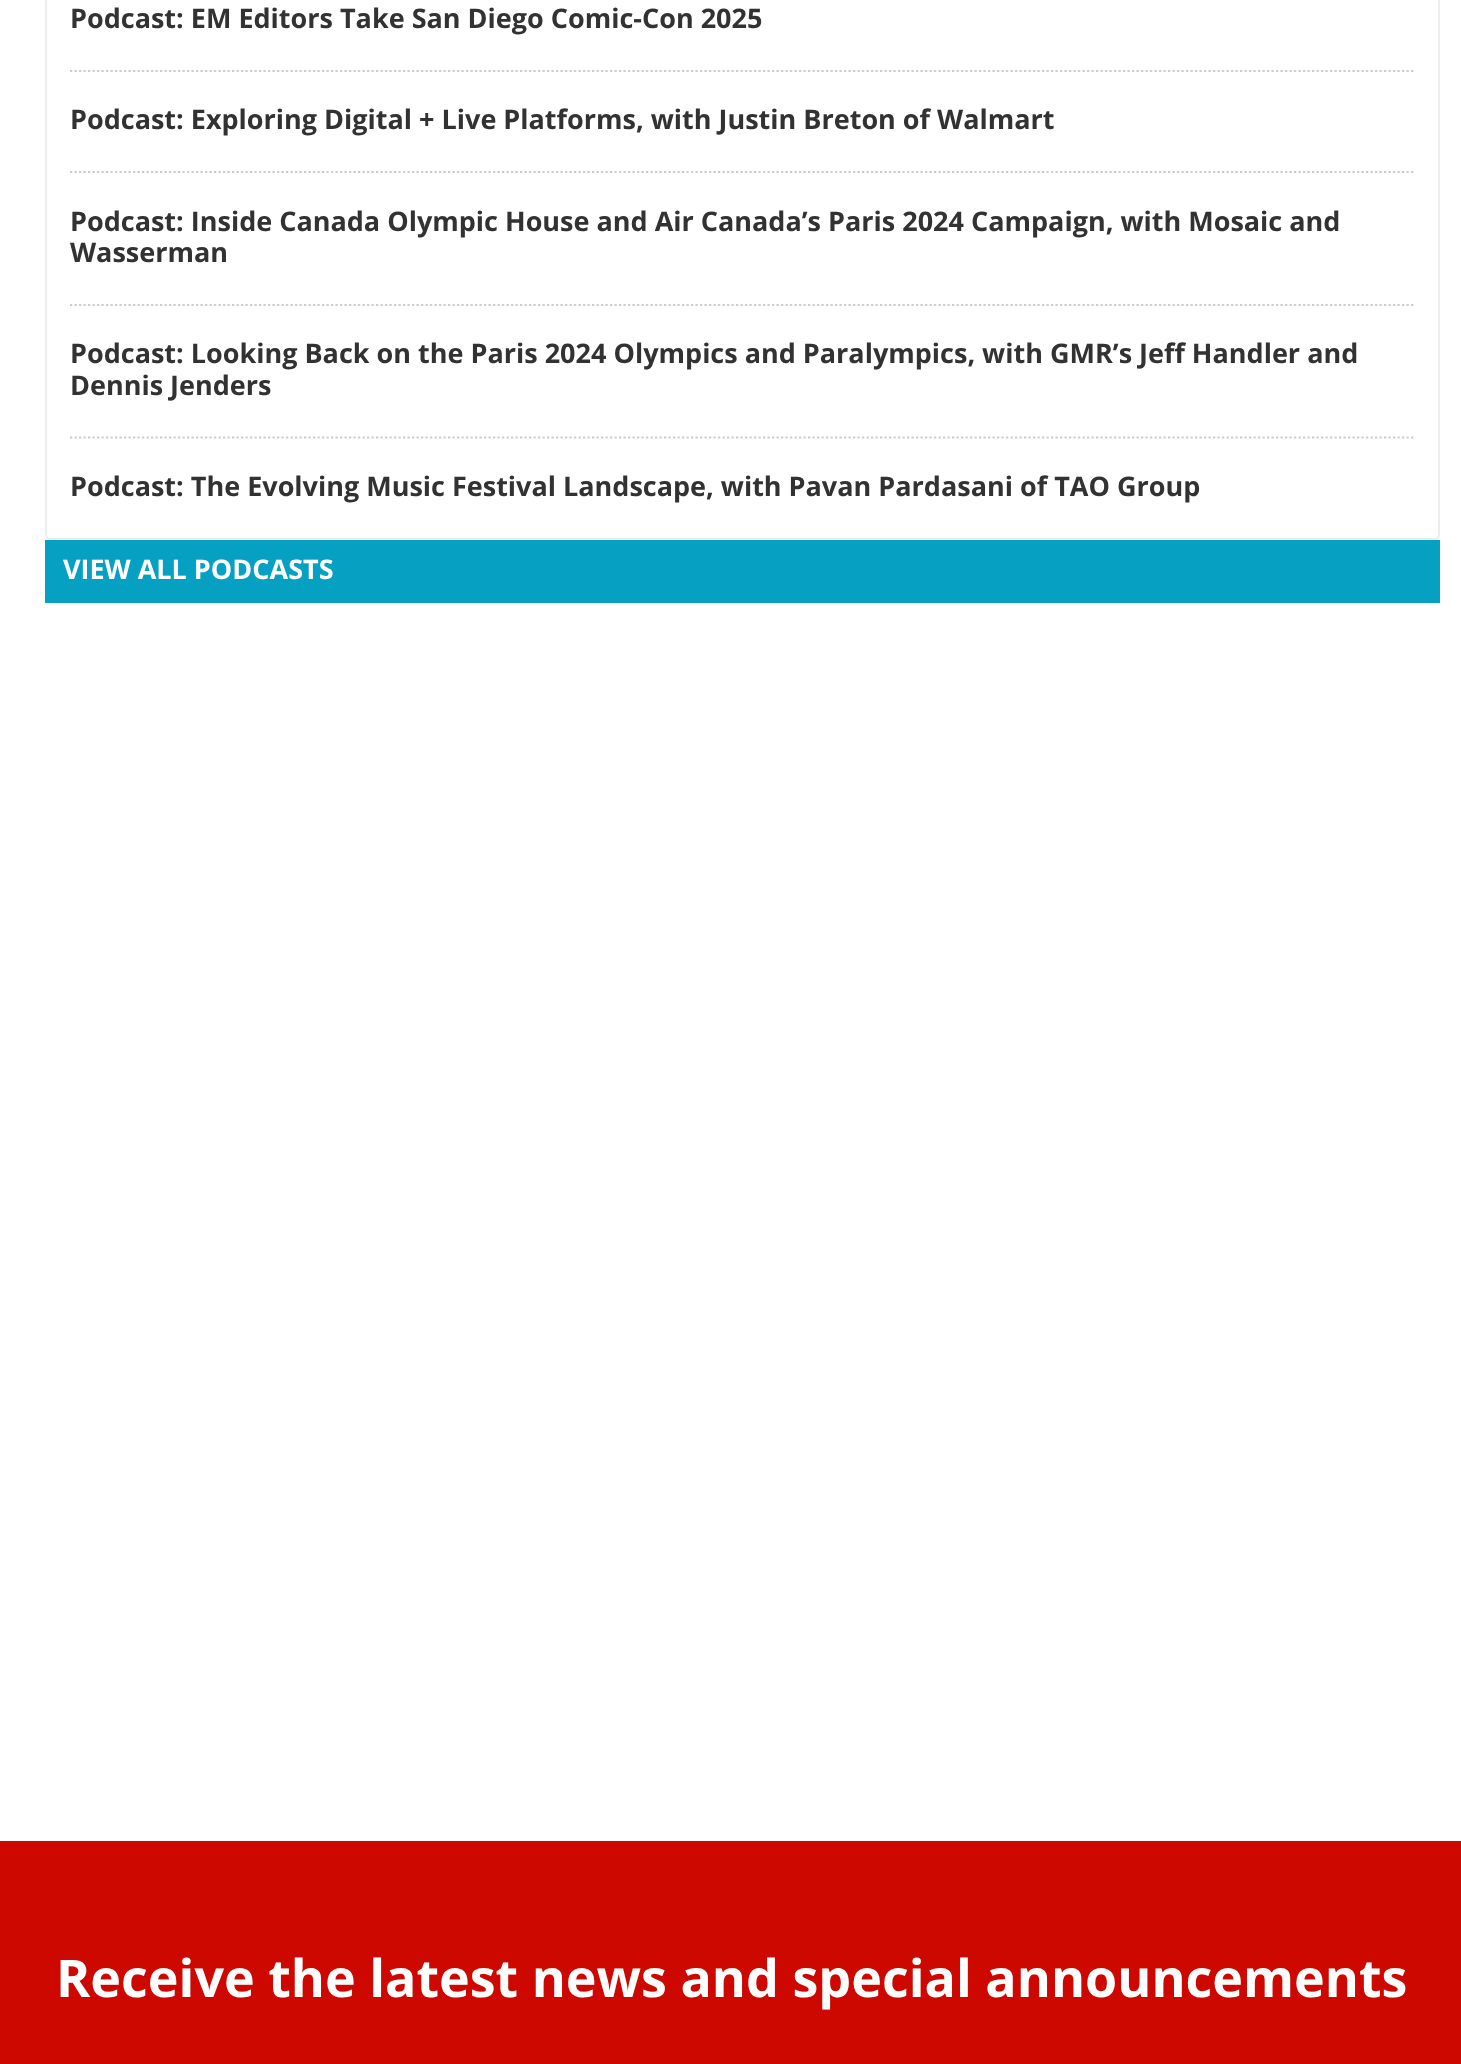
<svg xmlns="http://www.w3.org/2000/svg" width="1461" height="2064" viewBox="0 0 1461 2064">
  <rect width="100%" height="100%" fill="#ffffff"/>
  <rect x="46" y="-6" width="1393" height="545" rx="4" fill="none" stroke="#ececec" stroke-width="2"/>
  <path d="M70 71H1415" fill="none" stroke="#cccccc" stroke-width="2.2" stroke-dasharray="2.25 2.25"/>
  <text x="70" y="28" font-family="Open Sans" font-size="27" font-weight="bold" fill="#323232">Podcast: EM Editors Take San Diego Comic-Con 2025</text>
  <path d="M70 172H1415" fill="none" stroke="#cccccc" stroke-width="2.2" stroke-dasharray="2.25 2.25"/>
  <text x="70" y="129" font-family="Open Sans" font-size="27" font-weight="bold" fill="#323232">Podcast: Exploring Digital + Live Platforms, with Justin Breton of Walmart</text>
  <path d="M70 305H1415" fill="none" stroke="#cccccc" stroke-width="2.2" stroke-dasharray="2.25 2.25"/>
  <text x="70" y="231" font-family="Open Sans" font-size="27" font-weight="bold" fill="#323232">Podcast: Inside Canada Olympic House and Air Canada’s Paris 2024 Campaign, with Mosaic and</text>
  <text x="70" y="262" font-family="Open Sans" font-size="27" font-weight="bold" fill="#323232">Wasserman</text>
  <path d="M70 437.5H1415" fill="none" stroke="#cccccc" stroke-width="2.2" stroke-dasharray="2.25 2.25"/>
  <text x="70" y="363" font-family="Open Sans" font-size="27" font-weight="bold" fill="#323232">Podcast: Looking Back on the Paris 2024 Olympics and Paralympics, with GMR’s Jeff Handler and</text>
  <text x="70" y="395" font-family="Open Sans" font-size="27" font-weight="bold" fill="#323232">Dennis Jenders</text>
  <text x="70" y="496" font-family="Open Sans" font-size="27" font-weight="bold" fill="#323232">Podcast: The Evolving Music Festival Landscape, with Pavan Pardasani of TAO Group</text>
  <rect x="45" y="540" width="1395" height="63" fill="#06a1c2"/>
  <text x="63" y="579" font-family="Open Sans" font-size="27" font-weight="bold" fill="#ffffff">VIEW ALL PODCASTS</text>
  <rect x="0" y="1841" width="1461" height="223" fill="#cc0800"/>
  <text x="56" y="1997" font-family="Open Sans" font-size="52" font-weight="bold" fill="#ffffff">Receive the latest news and special announcements</text>
</svg>
